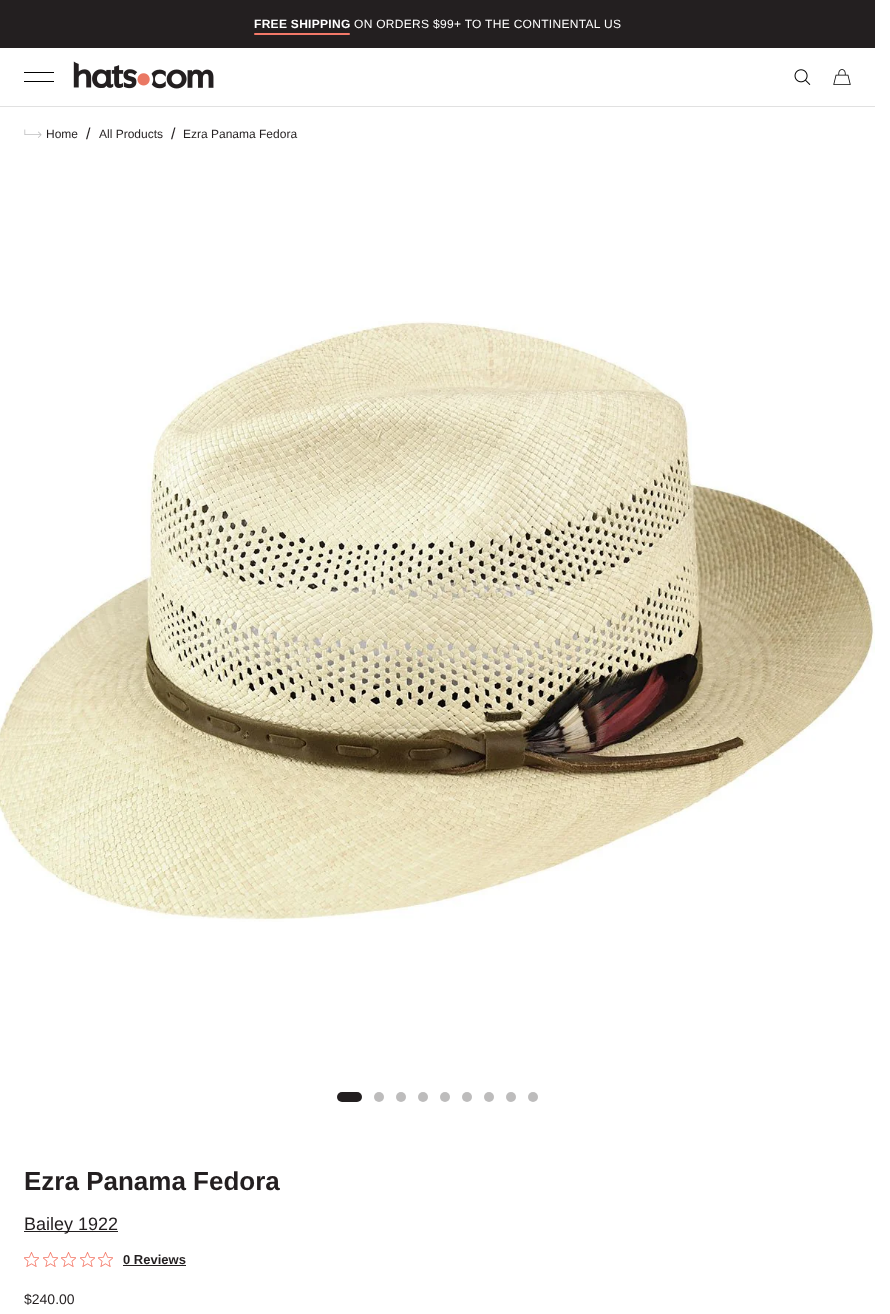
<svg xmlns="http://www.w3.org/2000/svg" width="890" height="1314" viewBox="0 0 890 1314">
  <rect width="100%" height="100%" fill="#ffffff"/>
  <rect x="0" y="0" width="875" height="48" fill="#231f20"/>
  <text x="254" y="28" font-family="Liberation Sans" font-size="12" font-weight="bold" letter-spacing="0.3" fill="#ffffff">FREE SHIPPING</text>
  <rect x="254" y="33" width="96" height="2" rx="1" fill="#f47969"/>
  <text x="354" y="28" font-family="Liberation Sans" font-size="12" letter-spacing="0.3" fill="#ffffff">ON ORDERS $99+ TO THE CONTINENTAL US</text>
  <rect x="24" y="72" width="30" height="1" fill="#000000"/>
  <rect x="24" y="81" width="30" height="1" fill="#000000"/>
  <image x="73" y="61" width="141" height="28" href="img1.png"/>
  <image x="794" y="69" width="17" height="16" href="img2.png"/>
  <image x="833" y="69" width="18" height="16" href="img3.png"/>
  <rect x="0" y="106" width="875" height="1" fill="#e1e1e1"/>
  <image x="24" y="129" width="18" height="9" href="img4.png"/>
  <text x="46" y="138" font-family="Liberation Sans" font-size="12" fill="#231f20">Home</text>
  <text x="86" y="139" font-family="Liberation Sans" font-size="16" fill="#231f20">/</text>
  <text x="99" y="138" font-family="Liberation Sans" font-size="12" fill="#231f20">All Products</text>
  <text x="171" y="139" font-family="Liberation Sans" font-size="16" fill="#231f20">/</text>
  <text x="183" y="138" font-family="Liberation Sans" font-size="12" fill="#231f20">Ezra Panama Fedora</text>
  <image x="0" y="321" width="875" height="601" href="img5.png"/>
  <rect x="337" y="1092" width="25" height="10" rx="5" fill="#231f20"/>
  <circle cx="379" cy="1097" r="5" fill="#bdbcbc"/>
  <circle cx="401" cy="1097" r="5" fill="#bdbcbc"/>
  <circle cx="423" cy="1097" r="5" fill="#bdbcbc"/>
  <circle cx="445" cy="1097" r="5" fill="#bdbcbc"/>
  <circle cx="467" cy="1097" r="5" fill="#bdbcbc"/>
  <circle cx="489" cy="1097" r="5" fill="#bdbcbc"/>
  <circle cx="511" cy="1097" r="5" fill="#bdbcbc"/>
  <circle cx="533" cy="1097" r="5" fill="#bdbcbc"/>
  <text x="24" y="1190" font-family="Liberation Sans" font-size="26" font-weight="bold" fill="#231f20">Ezra Panama Fedora</text>
  <rect x="24" y="1231" width="94" height="1" fill="#231f20"/>
  <text x="24" y="1230" font-family="Liberation Sans" font-size="18" fill="#231f20">Bailey 1922</text>
  <image x="24" y="1252" width="15" height="15" href="img6.png"/>
  <image x="43" y="1252" width="15" height="15" href="img6.png"/>
  <image x="61" y="1252" width="15" height="15" href="img6.png"/>
  <image x="80" y="1252" width="15" height="15" href="img6.png"/>
  <image x="98" y="1252" width="15" height="15" href="img6.png"/>
  <text x="123" y="1264" font-family="Liberation Sans" font-size="13" font-weight="bold" fill="#231f20">0 Reviews</text>
  <rect x="123" y="1265" width="63" height="1" fill="#231f20"/>
  <text x="24" y="1304" font-family="Liberation Sans" font-size="14" fill="#231f20">$240.00</text>
</svg>
